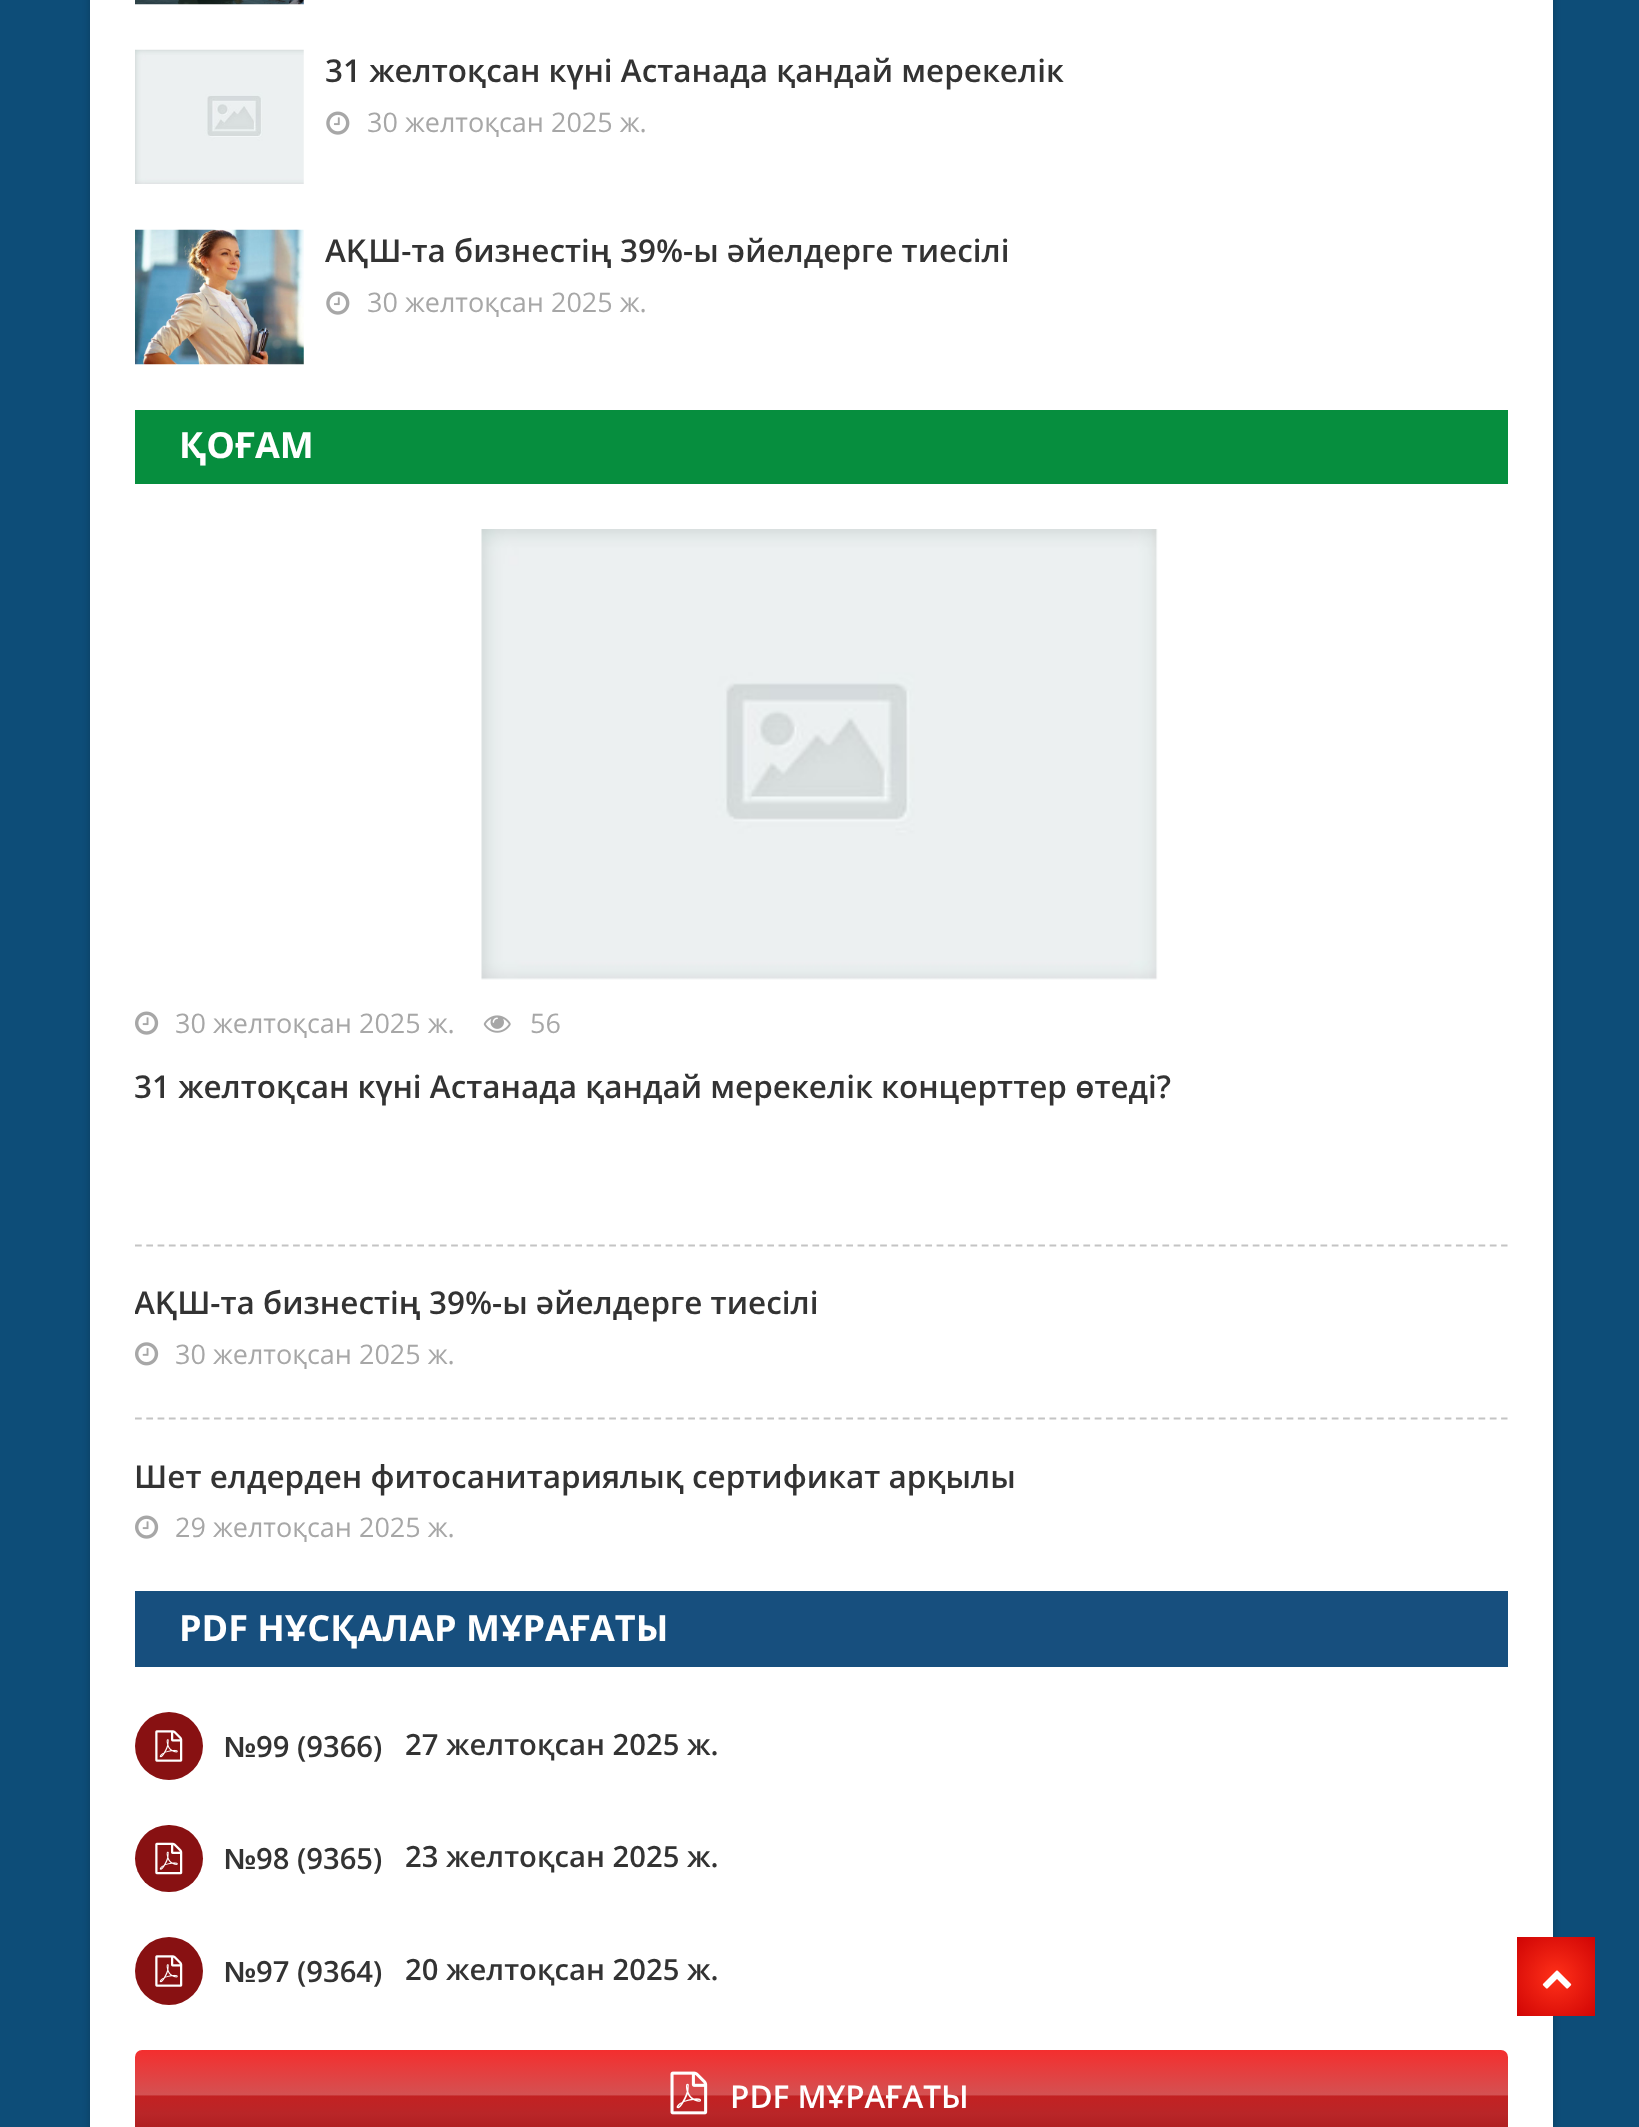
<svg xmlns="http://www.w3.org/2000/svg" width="1639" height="2127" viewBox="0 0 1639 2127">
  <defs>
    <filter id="blur1" x="-50%" y="-200%" width="200%" height="500%"><feGaussianBlur stdDeviation="4.5"/></filter>
    <clipPath id="clip1"><rect x="135" y="1247" width="1373" height="126"/></clipPath>
    <linearGradient id="g1" gradientUnits="userSpaceOnUse" x1="821" y1="2050" x2="821" y2="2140"><stop offset="0" stop-color="#f42e2e"/><stop offset="0.5" stop-color="#d45152"/><stop offset="0.51" stop-color="#c32122"/><stop offset="0.71" stop-color="#b92628"/><stop offset="1" stop-color="#a7191a"/></linearGradient>
    <radialGradient id="g2" gradientUnits="userSpaceOnUse" cx="1556" cy="1977" r="56"><stop offset="0" stop-color="#ff3019"/><stop offset="1" stop-color="#cf0404"/></radialGradient>
  </defs>
  <rect width="100%" height="100%" fill="#0d4d78"/>
  <rect x="90" y="-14" width="1463" height="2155" fill="#000000" fill-opacity="0.2" filter="url(#blur1)"/>
  <rect x="90" y="0" width="1463" height="2127" fill="#ffffff"/>
  <image x="135" y="0" width="169" height="5" href="img1.png"/>
  <image x="135" y="49" width="169" height="135" href="img2.png"/>
  <text x="325" y="82" font-family="Open Sans" font-size="31.5" font-weight="600" fill="#333333">31 желтоқсан күні Астанада қандай мерекелік</text>
  <image x="326" y="111" width="24" height="24" href="img3.png"/>
  <text x="367" y="132" font-family="Open Sans" font-size="27" fill="#a7a7a7">30 желтоқсан 2025 ж.</text>
  <image x="135" y="229" width="169" height="136" href="img4.png"/>
  <text x="325" y="262" font-family="Open Sans" font-size="31.5" font-weight="600" fill="#333333">АҚШ-та бизнестің 39%-ы әйелдерге тиесілі</text>
  <image x="326" y="291" width="24" height="24" href="img3.png"/>
  <text x="367" y="312" font-family="Open Sans" font-size="27" fill="#a7a7a7">30 желтоқсан 2025 ж.</text>
  <rect x="135" y="410" width="1373" height="74" fill="#068e3e"/>
  <text x="179" y="458" font-family="Open Sans" font-size="36" font-weight="bold" fill="#ffffff">ҚОҒАМ</text>
  <image x="481" y="529" width="677" height="451" href="img5.png"/>
  <image x="135" y="1011" width="24" height="24" href="img6.png"/>
  <text x="175" y="1033" font-family="Open Sans" font-size="27" fill="#a7a7a7">30 желтоқсан 2025 ж.</text>
  <image x="483" y="1015" width="28" height="18" href="img7.png"/>
  <text x="530" y="1033" font-family="Open Sans" font-size="27" fill="#a7a7a7">56</text>
  <text x="134" y="1098" font-family="Open Sans" font-size="31.5" font-weight="600" fill="#333333">31 желтоқсан күні Астанада қандай мерекелік концерттер өтеді?</text>
  <path d="M135 1245.5H1507.5" fill="none" stroke="#c4c4c4" stroke-width="2.2" stroke-dasharray="6.75 4.54"/>
  <g clip-path="url(#clip1)">
    <text x="134" y="1314" font-family="Open Sans" font-size="31.5" font-weight="600" fill="#333333">АҚШ-та бизнестің 39%-ы әйелдерге тиесілі</text>
  </g>
  <image x="135" y="1342" width="24" height="24" href="img8.png"/>
  <text x="175" y="1364" font-family="Open Sans" font-size="27" fill="#a7a7a7">30 желтоқсан 2025 ж.</text>
  <path d="M135 1418.5H1507.5" fill="none" stroke="#c4c4c4" stroke-width="2.2" stroke-dasharray="6.75 4.54"/>
  <text x="134" y="1488" font-family="Open Sans" font-size="31.5" font-weight="600" fill="#333333">Шет елдерден фитосанитариялық сертификат арқылы</text>
  <image x="135" y="1515" width="24" height="24" href="img6.png"/>
  <text x="175" y="1537" font-family="Open Sans" font-size="27" fill="#a7a7a7">29 желтоқсан 2025 ж.</text>
  <rect x="135" y="1591" width="1373" height="76" fill="#174f7e"/>
  <text x="179" y="1641" font-family="Open Sans" font-size="36" font-weight="bold" fill="#ffffff">PDF НҰСҚАЛАР МҰРАҒАТЫ</text>
  <circle cx="169" cy="1746" r="34" fill="#881112"/>
  <image x="155" y="1730" width="28" height="32" href="img9.png"/>
  <text x="224" y="1757" font-family="Liberation Sans" font-size="29.25" font-weight="bold" fill="#333333">№</text>
  <text x="256" y="1757" font-family="Open Sans" font-size="29.25" font-weight="600" fill="#333333">99 (9366)</text>
  <text x="405" y="1755" font-family="Open Sans" font-size="29.25" font-weight="600" fill="#333333">27 желтоқсан 2025 ж.</text>
  <rect x="135" y="1825" width="68" height="67" rx="33.5" fill="#881112"/>
  <image x="155" y="1842" width="28" height="33" href="img10.png"/>
  <text x="224" y="1869" font-family="Liberation Sans" font-size="29.25" font-weight="bold" fill="#333333">№</text>
  <text x="256" y="1869" font-family="Open Sans" font-size="29.25" font-weight="600" fill="#333333">98 (9365)</text>
  <text x="405" y="1867" font-family="Open Sans" font-size="29.25" font-weight="600" fill="#333333">23 желтоқсан 2025 ж.</text>
  <circle cx="169" cy="1971" r="34" fill="#881112"/>
  <image x="155" y="1955" width="28" height="32" href="img9.png"/>
  <text x="224" y="1982" font-family="Liberation Sans" font-size="29.25" font-weight="bold" fill="#333333">№</text>
  <text x="256" y="1982" font-family="Open Sans" font-size="29.25" font-weight="600" fill="#333333">97 (9364)</text>
  <text x="405" y="1980" font-family="Open Sans" font-size="29.25" font-weight="600" fill="#333333">20 желтоқсан 2025 ж.</text>
  <rect x="135" y="2050" width="1373" height="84" rx="7" fill="url(#g1)"/>
  <image x="670" y="2071" width="38" height="44" href="img11.png"/>
  <text x="730" y="2108" font-family="Open Sans" font-size="31.5" font-weight="600" fill="#ffffff">PDF МҰРАҒАТЫ</text>
  <rect x="1517" y="1937" width="78" height="79" fill="url(#g2)"/>
  <image x="1542" y="1970" width="30" height="19" href="img12.png"/>
</svg>
